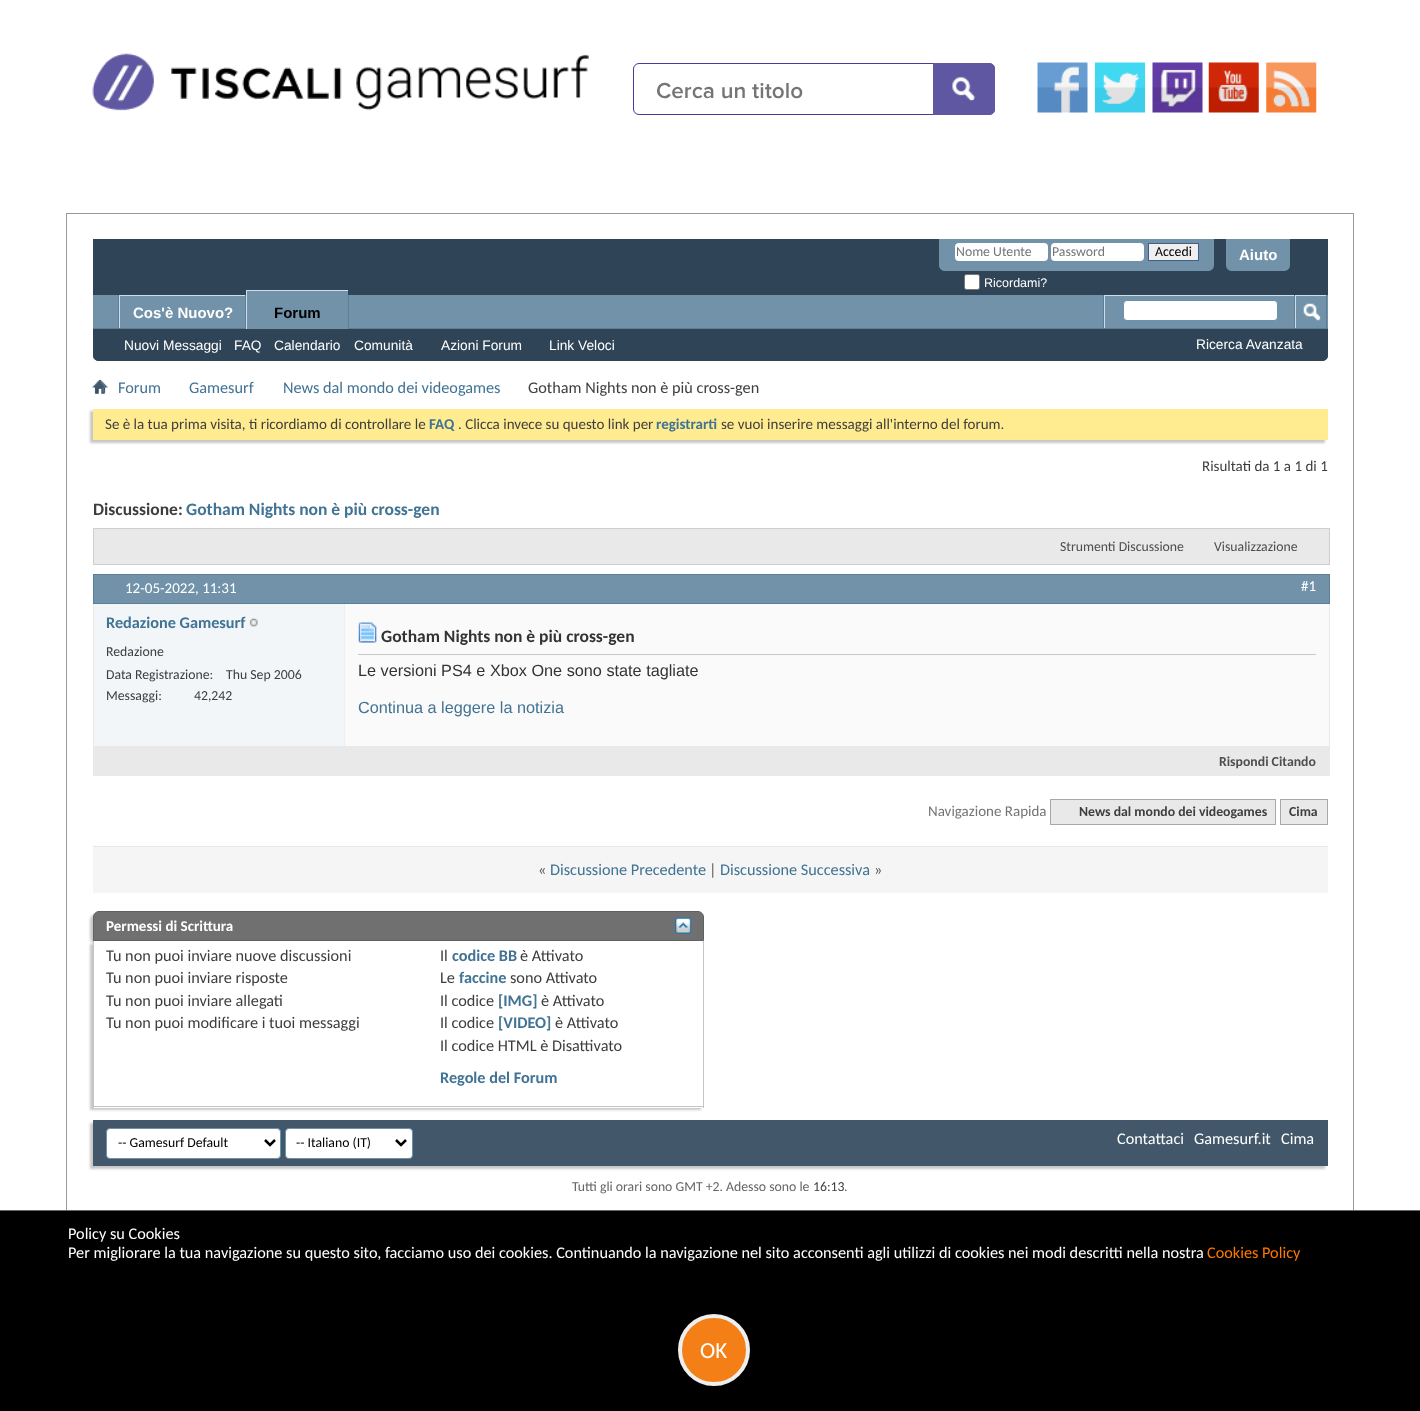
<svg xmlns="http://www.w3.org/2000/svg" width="1420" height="1411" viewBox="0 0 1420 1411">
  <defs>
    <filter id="blur1" x="-50%" y="-200%" width="200%" height="500%"><feGaussianBlur stdDeviation="1"/></filter>
  </defs>
  <rect width="100%" height="100%" fill="#ffffff"/>
  <image x="92" y="53" width="497" height="58" href="img1.png"/>
  <rect x="633.5" y="63.5" width="361" height="51" rx="5.5" fill="none" stroke="#463c99"/>
  <text x="656" y="98" font-family="Proxima Nova" font-size="22.5" font-weight="600" fill="#757575">Cerca un titolo</text>
  <path d="M933 63H989C992.5 63 995 65.5 995 69V109C995 112.5 992.5 115 989 115H933Z" fill="#5f57a1"/>
  <image x="952" y="76" width="24" height="25" href="img2.png"/>
  <image x="1037" y="62" width="51" height="51" href="img3.png"/>
  <image x="1095" y="62" width="50" height="51" href="img4.png"/>
  <image x="1152" y="62" width="51" height="51" href="img5.png"/>
  <image x="1208" y="62" width="51" height="51" href="img6.png"/>
  <image x="1266" y="62" width="51" height="51" href="img7.png"/>
  <rect x="66.5" y="213.5" width="1287" height="1077" fill="none" stroke="#999999"/>
  <path d="M93 239H1328V355C1328 358.5 1325.5 361 1322 361H99C95.5 361 93 358.5 93 355Z" fill="#2f4456"/>
  <path d="M939 239H1214V265C1214 268.5 1211.5 271 1208 271H945C941.5 271 939 268.5 939 265Z" fill="#7192a8"/>
  <rect x="955" y="243" width="93" height="18" rx="4" fill="#ffffff"/>
  <text x="956" y="256" font-family="Carlito" font-size="13.75" fill="#757575">Nome Utente</text>
  <rect x="1051" y="243" width="93" height="18" rx="4" fill="#ffffff"/>
  <text x="1052" y="256" font-family="Carlito" font-size="13.75" fill="#757575">Password</text>
  <rect x="1148.5" y="243.5" width="50" height="17" fill="#efefef" stroke="#415d8d"/>
  <text x="1155" y="256" font-family="Carlito" font-size="13.75" fill="#000000">Accedi</text>
  <rect x="964.5" y="274.5" width="15" height="15" rx="2" fill="#ffffff" stroke="#767676"/>
  <text x="984" y="287" font-family="Liberation Sans" font-size="12.5" fill="#ffffff">Ricordami?</text>
  <path d="M1226 239H1290V265C1290 268.5 1287.5 271 1284 271H1232C1228.5 271 1226 268.5 1226 265Z" fill="#7192a8"/>
  <text x="1239" y="260" font-family="Liberation Sans" font-size="15" font-weight="bold" fill="#ffffff">Aiuto</text>
  <path d="M93 295H1328V355C1328 358.5 1325.5 361 1322 361H99C95.5 361 93 358.5 93 355Z" fill="#2f4456"/>
  <rect x="93" y="295" width="1235" height="33" fill="#7192a8"/>
  <rect x="245" y="295" width="1" height="34" fill="#5a7f97"/>
  <rect x="118" y="295" width="1" height="34" fill="#5a7f97"/>
  <rect x="119" y="295" width="126" height="1" fill="#cedfeb"/>
  <rect x="119" y="295" width="1" height="34" fill="#cedfeb"/>
  <text x="133" y="318" font-family="Liberation Sans" font-size="15" font-weight="bold" fill="#ffffff">Cos'è Nuovo?</text>
  <rect x="348" y="295" width="1" height="33" fill="#5a7f97"/>
  <rect x="93" y="328" width="1235" height="1" fill="#5a7f97"/>
  <rect x="247" y="291" width="101" height="38" fill="#7192a8"/>
  <rect x="246" y="290" width="102" height="1" fill="#cedfeb"/>
  <rect x="246" y="290" width="1" height="39" fill="#cedfeb"/>
  <text x="274" y="318" font-family="Liberation Sans" font-size="15" font-weight="bold" fill="#000000">Forum</text>
  <text x="124" y="350" font-family="Liberation Sans" font-size="13.75" fill="#ffffff">Nuovi Messaggi</text>
  <text x="234" y="350" font-family="Liberation Sans" font-size="13.75" fill="#ffffff">FAQ</text>
  <text x="274" y="350" font-family="Liberation Sans" font-size="13.75" fill="#ffffff">Calendario</text>
  <text x="354" y="350" font-family="Liberation Sans" font-size="13.75" fill="#ffffff">Comunità</text>
  <text x="441" y="350" font-family="Liberation Sans" font-size="13.75" fill="#ffffff">Azioni Forum</text>
  <text x="549" y="350" font-family="Liberation Sans" font-size="13.75" fill="#ffffff">Link Veloci</text>
  <rect x="1103" y="295" width="1" height="33" fill="#5a7f97"/>
  <rect x="1104" y="295" width="190" height="1" fill="#cedfeb"/>
  <rect x="1104" y="295" width="1" height="33" fill="#cedfeb"/>
  <rect x="1123.5" y="300.5" width="154" height="20" rx="3.5" fill="#ffffff" stroke="#6b91ab"/>
  <rect x="1326" y="295" width="1" height="33" fill="#5a7f97"/>
  <rect x="1294" y="295" width="1" height="33" fill="#5a7f97"/>
  <rect x="1295" y="295" width="31" height="1" fill="#cedfeb"/>
  <rect x="1295" y="295" width="1" height="33" fill="#cedfeb"/>
  <image x="1303" y="303" width="18" height="18" href="img8.png"/>
  <text x="1196" y="349" font-family="Liberation Sans" font-size="13.75" fill="#ffffff">Ricerca Avanzata</text>
  <image x="92" y="379" width="16" height="15" href="img9.png"/>
  <text x="118" y="393" font-family="Carlito" font-size="16.25" fill="#417394">Forum</text>
  <text x="189" y="393" font-family="Carlito" font-size="16.25" fill="#417394">Gamesurf</text>
  <text x="283" y="393" font-family="Carlito" font-size="16.25" fill="#417394">News dal mondo dei videogames</text>
  <text x="528" y="393" font-family="Carlito" font-size="16.25" fill="#3e3e3e">Gotham Nights non è più cross-gen</text>
  <rect x="90" y="411" width="1235" height="32" fill="#c8c8c8" filter="url(#blur1)"/>
  <rect x="93" y="409" width="1235" height="31" fill="#ffeb90"/>
  <text x="105" y="429" font-family="Carlito" font-size="15" fill="#3e3e3e">Se è la tua prima visita, ti ricordiamo di controllare le</text>
  <text x="429" y="429" font-family="Carlito" font-size="15" font-weight="bold" fill="#417394">FAQ</text>
  <text x="458" y="429" font-family="Carlito" font-size="15" fill="#3e3e3e">. Clicca invece su questo link per</text>
  <text x="656" y="429" font-family="Carlito" font-size="15" font-weight="bold" fill="#417394">registrarti</text>
  <text x="721" y="429" font-family="Carlito" font-size="15" fill="#3e3e3e">se vuoi inserire messaggi all'interno del forum.</text>
  <text x="1202" y="471" font-family="Carlito" font-size="15" fill="#3e3e3e">Risultati da 1 a 1 di 1</text>
  <text x="93" y="515" font-family="Carlito" font-size="17.5" font-weight="bold" fill="#3e3e3e">Discussione:</text>
  <text x="186" y="515" font-family="Carlito" font-size="17.5" font-weight="bold" fill="#417394">Gotham Nights non è più cross-gen</text>
  <rect x="93.5" y="528.5" width="1236" height="36" fill="#e9e9e9" stroke="#cecece"/>
  <text x="1060" y="551" font-family="Carlito" font-size="13.75" fill="#4e4e4e">Strumenti Discussione</text>
  <text x="1214" y="551" font-family="Carlito" font-size="13.75" fill="#4e4e4e">Visualizzazione</text>
  <rect x="93.5" y="574.5" width="1236" height="201" fill="none" stroke="#e9e9e9"/>
  <rect x="93.5" y="574.5" width="1236" height="29" fill="#7192a8" stroke="#5a7f97"/>
  <text x="125" y="593" font-family="Carlito" font-size="15" fill="#ffffff">12-05-2022, 11:31</text>
  <text x="1301" y="591" font-family="Carlito" font-size="15" fill="#ffffff">#1</text>
  <rect x="94" y="604" width="250" height="142" fill="#f2f6f8"/>
  <text x="106" y="628" font-family="Carlito" font-size="16.25" font-weight="bold" fill="#417394">Redazione Gamesurf</text>
  <image x="249" y="618" width="9" height="9" href="img10.png"/>
  <text x="106" y="656" font-family="Carlito" font-size="13.75" fill="#3e3e3e">Redazione</text>
  <text x="106" y="679" font-family="Carlito" font-size="13.75" fill="#3e3e3e">Data Registrazione:</text>
  <text x="226" y="679" font-family="Carlito" font-size="13.75" fill="#3e3e3e">Thu Sep 2006</text>
  <text x="106" y="700" font-family="Carlito" font-size="13.75" fill="#3e3e3e">Messaggi:</text>
  <text x="194" y="700" font-family="Carlito" font-size="13.75" fill="#3e3e3e">42,242</text>
  <rect x="345" y="604" width="984" height="142" fill="#fafafa"/>
  <rect x="344" y="604" width="1" height="142" fill="#efefef"/>
  <rect x="358" y="654" width="958" height="1" fill="#c8c8c8"/>
  <image x="358" y="622" width="19" height="21" href="img11.png"/>
  <text x="381" y="642" font-family="Carlito" font-size="17.5" font-weight="bold" fill="#333333">Gotham Nights non è più cross-gen</text>
  <text x="358" y="676" font-family="Liberation Sans" font-size="16.25" fill="#333333">Le versioni PS4 e Xbox One sono state tagliate</text>
  <text x="358" y="713" font-family="Liberation Sans" font-size="16.25" fill="#417394">Continua a leggere la notizia</text>
  <rect x="94" y="746" width="1235" height="29" fill="#e9e9e9"/>
  <text x="1219" y="766" font-family="Carlito" font-size="13.75" font-weight="bold" fill="#4e4e4e">Rispondi Citando</text>
  <text x="928" y="816" font-family="Carlito" font-size="15" fill="#757575">Navigazione Rapida</text>
  <rect x="1050.5" y="799.5" width="225" height="25" fill="#e9e9e9" stroke="#a8a8a8"/>
  <text x="1079" y="816" font-family="Carlito" font-size="13.75" font-weight="bold" fill="#3e3e3e">News dal mondo dei videogames</text>
  <rect x="1280.5" y="799.5" width="47" height="25" fill="#e9e9e9" stroke="#a8a8a8"/>
  <text x="1289" y="816" font-family="Carlito" font-size="13.75" font-weight="bold" fill="#3e3e3e">Cima</text>
  <rect x="93" y="847" width="1235" height="46" fill="#f5f5f5"/>
  <rect x="93" y="846" width="1235" height="1" fill="#e7e7e7"/>
  <text x="538" y="875" font-family="Carlito" font-size="16.25" fill="#5d5d5d">«</text>
  <text x="550" y="875" font-family="Carlito" font-size="16.25" fill="#417394">Discussione Precedente</text>
  <text x="709" y="875" font-family="Carlito" font-size="16.25" fill="#5d5d5d">|</text>
  <text x="720" y="875" font-family="Carlito" font-size="16.25" fill="#417394">Discussione Successiva</text>
  <text x="874" y="875" font-family="Carlito" font-size="16.25" fill="#5d5d5d">»</text>
  <rect x="90" y="914" width="611" height="30" rx="6" fill="#c8c8c8" filter="url(#blur1)"/>
  <path d="M99 911.5H698C701 911.5 703.5 914 703.5 917V940.5H93.5V917C93.5 914 96 911.5 99 911.5Z" fill="#707070" stroke="#606060"/>
  <text x="106" y="931" font-family="Carlito" font-size="15" font-weight="bold" fill="#ffffff">Permessi di Scrittura</text>
  <image x="675" y="917" width="17" height="17" href="img12.png"/>
  <rect x="90" y="944" width="611" height="166" fill="#c8c8c8" filter="url(#blur1)"/>
  <rect x="94" y="941" width="609" height="167" fill="#ffffff"/>
  <rect x="703" y="941" width="1" height="167" fill="#c4c4c4"/>
  <rect x="93" y="1106" width="611" height="1" fill="#c4c4c4"/>
  <rect x="93" y="941" width="1" height="167" fill="#c4c4c4"/>
  <text x="106" y="961" font-family="Carlito" font-size="16.25" fill="#3e3e3e">Tu non puoi inviare nuove discussioni</text>
  <text x="106" y="983" font-family="Carlito" font-size="16.25" fill="#3e3e3e">Tu non puoi inviare risposte</text>
  <text x="106" y="1006" font-family="Carlito" font-size="16.25" fill="#3e3e3e">Tu non puoi inviare allegati</text>
  <text x="106" y="1028" font-family="Carlito" font-size="16.25" fill="#3e3e3e">Tu non puoi modificare i tuoi messaggi</text>
  <text x="440" y="961" font-family="Carlito" font-size="16.25" fill="#3e3e3e">Il</text>
  <text x="452" y="961" font-family="Carlito" font-size="16.25" font-weight="bold" fill="#417394">codice BB</text>
  <text x="520" y="961" font-family="Carlito" font-size="16.25" fill="#3e3e3e">è Attivato</text>
  <text x="440" y="983" font-family="Carlito" font-size="16.25" fill="#3e3e3e">Le</text>
  <text x="459" y="983" font-family="Carlito" font-size="16.25" font-weight="bold" fill="#417394">faccine</text>
  <text x="510" y="983" font-family="Carlito" font-size="16.25" fill="#3e3e3e">sono Attivato</text>
  <text x="440" y="1006" font-family="Carlito" font-size="16.25" fill="#3e3e3e">Il codice</text>
  <text x="498" y="1006" font-family="Carlito" font-size="16.25" font-weight="bold" fill="#417394">[IMG]</text>
  <text x="541" y="1006" font-family="Carlito" font-size="16.25" fill="#3e3e3e">è Attivato</text>
  <text x="440" y="1028" font-family="Carlito" font-size="16.25" fill="#3e3e3e">Il codice</text>
  <text x="498" y="1028" font-family="Carlito" font-size="16.25" font-weight="bold" fill="#417394">[VIDEO]</text>
  <text x="555" y="1028" font-family="Carlito" font-size="16.25" fill="#3e3e3e">è Attivato</text>
  <text x="440" y="1051" font-family="Carlito" font-size="16.25" fill="#3e3e3e">Il codice HTML è Disattivato</text>
  <text x="440" y="1083" font-family="Carlito" font-size="16.25" font-weight="bold" fill="#417394">Regole del Forum</text>
  <rect x="90" y="1123" width="1235" height="46" fill="#c8c8c8" filter="url(#blur1)"/>
  <rect x="93" y="1120" width="1235" height="46" fill="#425769"/>
  <rect x="106.5" y="1128.5" width="174" height="30" rx="3.5" fill="#ffffff" stroke="#6b91ab"/>
  <path d="M265 1140L270 1145L275 1140" fill="none" stroke="#000000" stroke-width="2.5"/>
  <text x="118" y="1147" font-family="Carlito" font-size="13.75" fill="#000000">-- Gamesurf Default</text>
  <rect x="285.5" y="1128.5" width="127" height="30" rx="3.5" fill="#ffffff" stroke="#6b91ab"/>
  <path d="M396 1140L401 1145L406 1140" fill="none" stroke="#000000" stroke-width="2.5"/>
  <text x="296" y="1147" font-family="Carlito" font-size="13.75" fill="#000000">-- Italiano (IT)</text>
  <text x="1117" y="1144" font-family="Carlito" font-size="16.25" fill="#ffffff">Contattaci</text>
  <text x="1194" y="1144" font-family="Carlito" font-size="16.25" fill="#ffffff">Gamesurf.it</text>
  <text x="1281" y="1144" font-family="Carlito" font-size="16.25" fill="#ffffff">Cima</text>
  <text x="572" y="1191" font-family="Carlito" font-size="13.75" fill="#666666">Tutti gli orari sono GMT +2. Adesso sono le</text>
  <text x="813" y="1191" font-family="Carlito" font-size="13.75" fill="#3e3e3e">16:13</text>
  <text x="844" y="1191" font-family="Carlito" font-size="13.75" fill="#666666">.</text>
  <rect x="0" y="1211" width="1420" height="200" fill="#000000"/>
  <rect x="0" y="1210" width="1420" height="1" fill="#666666"/>
  <text x="68" y="1239" font-family="Carlito" font-size="16.25" fill="#ffffff">Policy su Cookies</text>
  <text x="68" y="1258" font-family="Carlito" font-size="16.25" fill="#ffffff">Per migliorare la tua navigazione su questo sito, facciamo uso dei cookies. Continuando la navigazione nel sito acconsenti agli utilizzi di cookies nei modi descritti nella nostra</text>
  <text x="1207" y="1258" font-family="Carlito" font-size="16.25" fill="#ff7802">Cookies Policy</text>
  <circle cx="714" cy="1350" r="34" fill="#f57f17" stroke="#eeeeee" stroke-width="4"/>
  <text x="700" y="1358" font-family="Carlito" font-size="23" fill="#ffffff">OK</text>
</svg>
